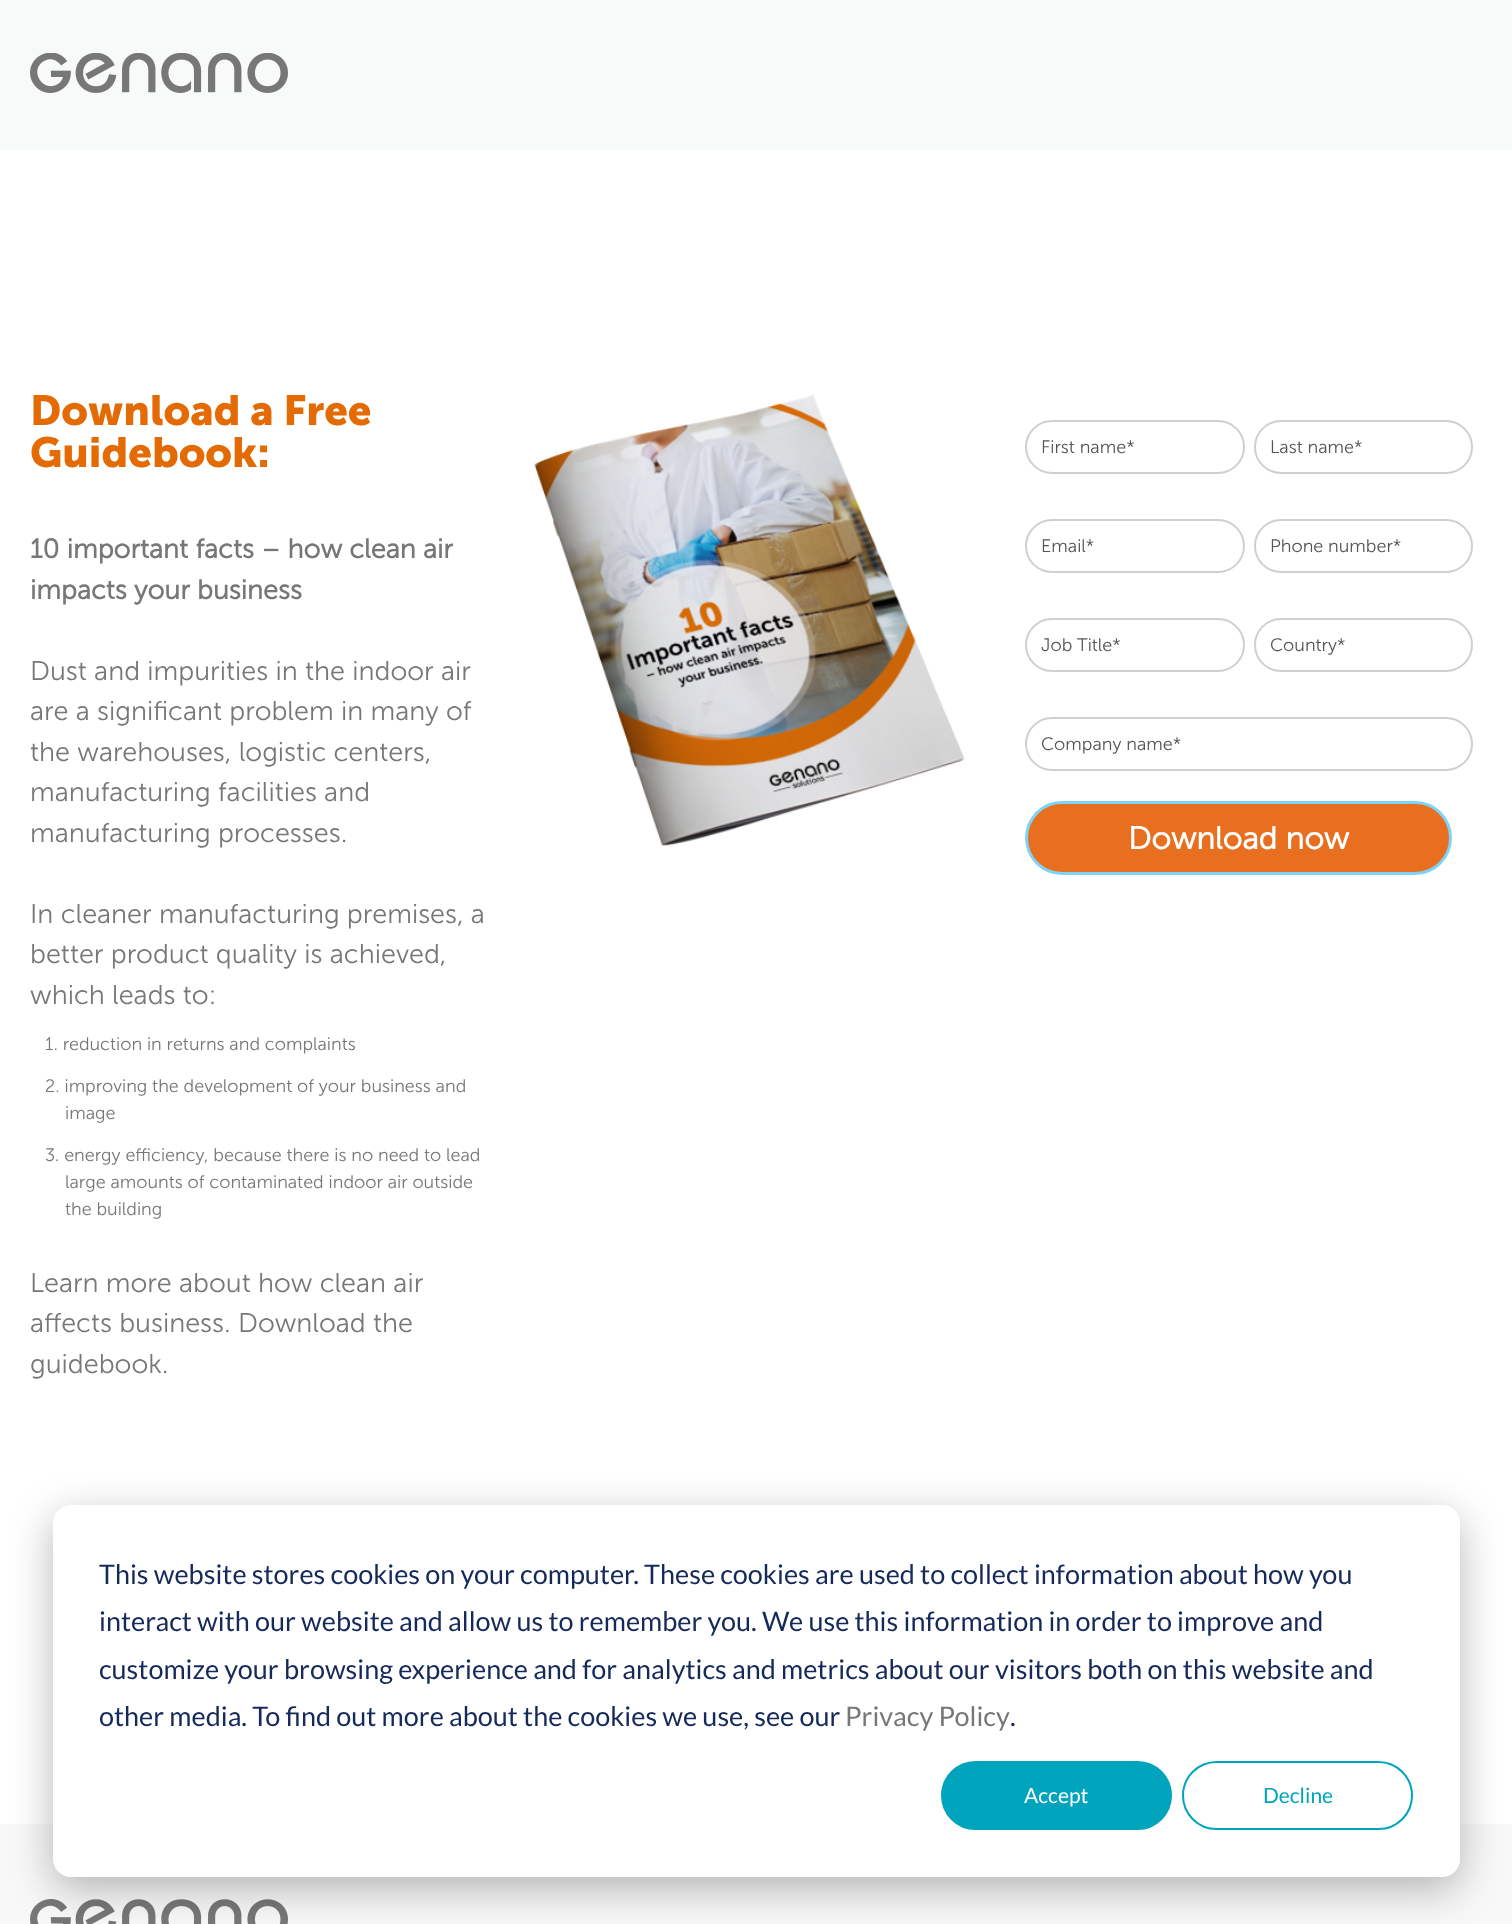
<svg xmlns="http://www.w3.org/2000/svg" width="1512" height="1924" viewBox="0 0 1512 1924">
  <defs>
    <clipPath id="clip1"><rect x="1271" y="635" width="186" height="21"/></clipPath>
    <filter id="blur1" x="-50%" y="-200%" width="200%" height="500%"><feGaussianBlur stdDeviation="21"/></filter>
  </defs>
  <rect width="100%" height="100%" fill="#ffffff"/>
  <rect x="0" y="0" width="1512" height="150" fill="#f8f9f9"/>
  <image x="30" y="53" width="258" height="40" href="img1.png"/>
  <text x="30" y="425" font-family="Museo Sans" font-size="42" font-weight="bold" fill="#e46a04">Download a Free</text>
  <text x="30" y="467" font-family="Museo Sans" font-size="42" font-weight="bold" fill="#e46a04">Guidebook:</text>
  <text x="30" y="558" font-family="'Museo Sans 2'" font-size="27" font-weight="bold" fill="#777777">10 important facts – how clean air</text>
  <text x="30" y="599" font-family="'Museo Sans 2'" font-size="27" font-weight="bold" fill="#777777">impacts your business</text>
  <text x="30" y="680" font-family="Museo Sans" font-size="27" font-weight="300" fill="#777777">Dust and impurities in the indoor air</text>
  <text x="30" y="720" font-family="Museo Sans" font-size="27" font-weight="300" fill="#777777">are a significant problem in many of</text>
  <text x="30" y="761" font-family="Museo Sans" font-size="27" font-weight="300" fill="#777777">the warehouses, logistic centers,</text>
  <text x="30" y="801" font-family="Museo Sans" font-size="27" font-weight="300" fill="#777777">manufacturing facilities and</text>
  <text x="30" y="842" font-family="Museo Sans" font-size="27" font-weight="300" fill="#777777">manufacturing processes.</text>
  <text x="30" y="923" font-family="Museo Sans" font-size="27" font-weight="300" fill="#777777">In cleaner manufacturing premises, a</text>
  <text x="30" y="963" font-family="Museo Sans" font-size="27" font-weight="300" fill="#777777">better product quality is achieved,</text>
  <text x="30" y="1004" font-family="Museo Sans" font-size="27" font-weight="300" fill="#777777">which leads to:</text>
  <text x="45" y="1050" font-family="Museo Sans" font-size="18" font-weight="300" fill="#777777">1. reduction in returns and complaints</text>
  <text x="45" y="1092" font-family="Museo Sans" font-size="18" font-weight="300" fill="#777777">2. improving the development of your business and</text>
  <text x="65" y="1119" font-family="Museo Sans" font-size="18" font-weight="300" fill="#777777">image</text>
  <text x="45" y="1161" font-family="Museo Sans" font-size="18" font-weight="300" fill="#777777">3. energy efficiency, because there is no need to lead</text>
  <text x="65" y="1188" font-family="Museo Sans" font-size="18" font-weight="300" fill="#777777">large amounts of contaminated indoor air outside</text>
  <text x="65" y="1215" font-family="Museo Sans" font-size="18" font-weight="300" fill="#777777">the building</text>
  <text x="30" y="1292" font-family="Museo Sans" font-size="27" font-weight="300" fill="#777777">Learn more about how clean air</text>
  <text x="30" y="1332" font-family="Museo Sans" font-size="27" font-weight="300" fill="#777777">affects business. Download the</text>
  <text x="30" y="1373" font-family="Museo Sans" font-size="27" font-weight="300" fill="#777777">guidebook.</text>
  <image x="534" y="394" width="431" height="452" href="img2.png"/>
  <rect x="1026" y="421" width="218" height="52" rx="26" fill="none" stroke="#cfcfcf" stroke-width="2"/>
  <text x="1041" y="453" font-family="Museo Sans" font-size="18" font-weight="300" fill="#555555">First name*</text>
  <rect x="1255" y="421" width="217" height="52" rx="26" fill="none" stroke="#cfcfcf" stroke-width="2"/>
  <text x="1270" y="453" font-family="Museo Sans" font-size="18" font-weight="300" fill="#555555">Last name*</text>
  <rect x="1026" y="520" width="218" height="52" rx="26" fill="none" stroke="#cfcfcf" stroke-width="2"/>
  <text x="1041" y="552" font-family="Museo Sans" font-size="18" font-weight="300" fill="#555555">Email*</text>
  <rect x="1255" y="520" width="217" height="52" rx="26" fill="none" stroke="#cfcfcf" stroke-width="2"/>
  <text x="1270" y="552" font-family="Museo Sans" font-size="18" font-weight="300" fill="#555555">Phone number*</text>
  <rect x="1026" y="619" width="218" height="52" rx="26" fill="none" stroke="#cfcfcf" stroke-width="2"/>
  <text x="1041" y="651" font-family="Museo Sans" font-size="18" font-weight="300" fill="#555555">Job Title*</text>
  <rect x="1255" y="619" width="217" height="52" rx="26" fill="none" stroke="#cfcfcf" stroke-width="2"/>
  <g clip-path="url(#clip1)">
    <text x="1270" y="651" font-family="Museo Sans" font-size="18" font-weight="300" fill="#555555">Country*</text>
  </g>
  <rect x="1026" y="718" width="446" height="52" rx="26" fill="none" stroke="#cfcfcf" stroke-width="2"/>
  <text x="1041" y="750" font-family="Museo Sans" font-size="18" font-weight="300" fill="#555555">Company name*</text>
  <rect x="1026.5" y="802.5" width="424" height="71" rx="35.5" fill="#e76f1f" stroke="#7ed3f7" stroke-width="3"/>
  <text x="1128" y="849" font-family="'Museo Sans 2'" font-size="31.5" font-weight="bold" fill="#ffffff">Download now</text>
  <rect x="0" y="1824" width="1512" height="100" fill="#f8f8f9"/>
  <image x="30" y="1899" width="258" height="25" href="img3.png"/>
  <rect x="53" y="1517" width="1407" height="372" rx="18" fill="#000000" fill-opacity="0.28" filter="url(#blur1)"/>
  <rect x="53" y="1505" width="1407" height="372" rx="18" fill="#ffffff"/>
  <text x="99" y="1584" font-family="Lato" font-size="27" fill="#15295a">This website stores cookies on your computer. These cookies are used to collect information about how you</text>
  <text x="99" y="1631" font-family="Lato" font-size="27" fill="#15295a">interact with our website and allow us to remember you. We use this information in order to improve and</text>
  <text x="99" y="1679" font-family="Lato" font-size="27" fill="#15295a">customize your browsing experience and for analytics and metrics about our visitors both on this website and</text>
  <text x="99" y="1726" font-family="Lato" font-size="27" fill="#15295a">other media. To find out more about the cookies we use, see our</text>
  <text x="845" y="1726" font-family="Lato" font-size="27" fill="#777777">Privacy Policy</text>
  <text x="1010" y="1726" font-family="Lato" font-size="27" fill="#15295a">.</text>
  <rect x="942" y="1762" width="229" height="67" rx="33.5" fill="#00a4bd" stroke="#00a4bd" stroke-width="2"/>
  <text x="1024" y="1803" font-family="Lato" font-size="21" fill="#ffffff">Accept</text>
  <rect x="1183" y="1762" width="229" height="67" rx="33.5" fill="none" stroke="#00a4bd" stroke-width="2"/>
  <text x="1263" y="1803" font-family="Lato" font-size="21" fill="#00a4bd">Decline</text>
</svg>
